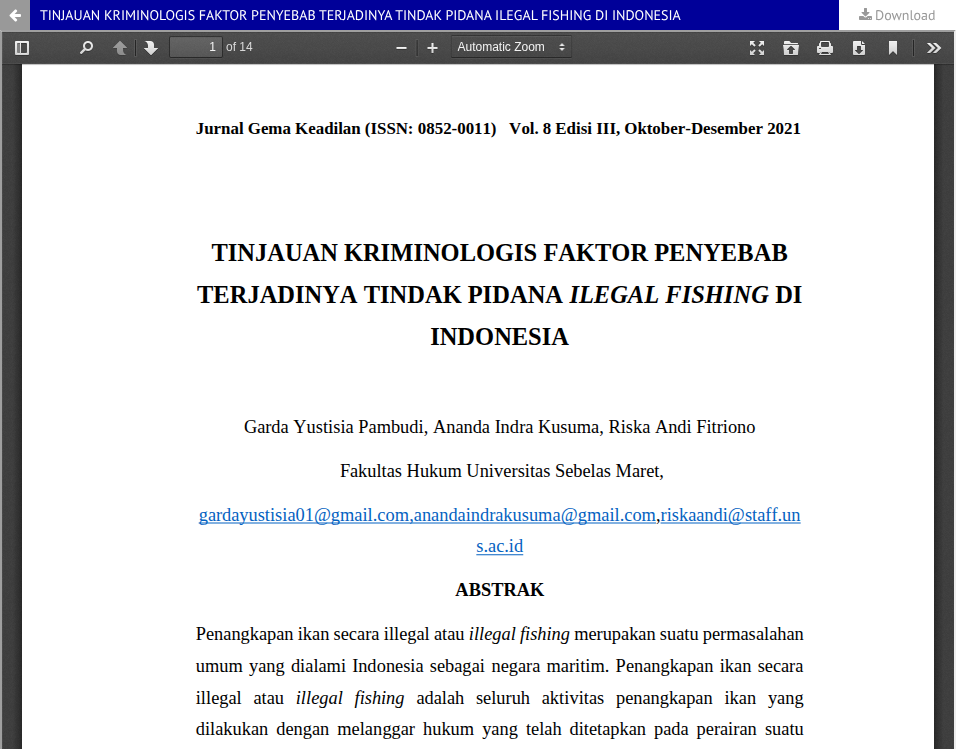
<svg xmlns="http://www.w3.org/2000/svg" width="956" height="749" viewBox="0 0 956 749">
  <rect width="100%" height="100%" fill="#ffffff"/>
  <rect x="30" y="0" width="809" height="30" fill="#000099"/>
  <rect x="0" y="0" width="30" height="30" fill="#999999"/>
  <image x="9" y="9" width="12" height="13" href="img1.png"/>
  <text x="40" y="20" font-family="PT Sans" font-size="14" fill="#ffffff">TINJAUAN KRIMINOLOGIS FAKTOR PENYEBAB TERJADINYA TINDAK PIDANA ILEGAL FISHING DI INDONESIA</text>
  <image x="859" y="8" width="13" height="12" href="img2.png"/>
  <text x="875" y="20" font-family="PT Sans" font-size="14" fill="#999999">Download</text>
  <path d="M0 30H956L954 32H2Z" fill="#9f9f9f"/>
  <path d="M0 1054V30L2 32V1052Z" fill="#9f9f9f"/>
  <image x="2" y="32" width="952" height="717" href="img3.png"/>
  <path d="M956 30V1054L954 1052V32Z" fill="#eeeeee"/>
</svg>
